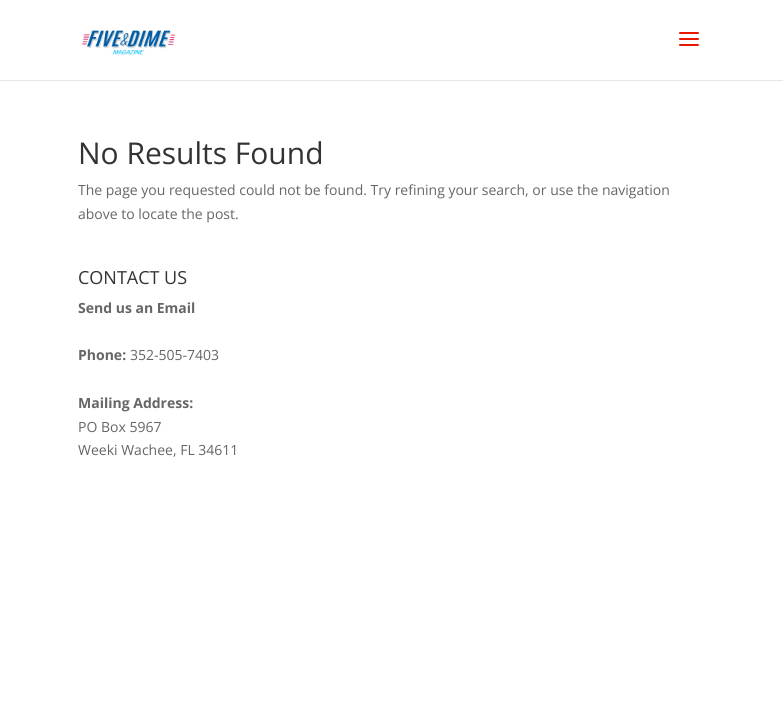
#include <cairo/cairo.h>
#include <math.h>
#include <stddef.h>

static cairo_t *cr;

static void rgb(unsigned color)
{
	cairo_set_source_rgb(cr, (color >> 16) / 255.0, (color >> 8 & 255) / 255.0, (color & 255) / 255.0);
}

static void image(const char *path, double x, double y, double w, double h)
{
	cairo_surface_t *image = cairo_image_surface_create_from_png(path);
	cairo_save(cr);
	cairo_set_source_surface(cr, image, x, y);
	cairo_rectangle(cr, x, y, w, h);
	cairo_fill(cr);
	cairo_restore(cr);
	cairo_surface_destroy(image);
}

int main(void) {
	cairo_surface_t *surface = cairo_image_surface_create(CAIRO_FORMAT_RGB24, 783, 713);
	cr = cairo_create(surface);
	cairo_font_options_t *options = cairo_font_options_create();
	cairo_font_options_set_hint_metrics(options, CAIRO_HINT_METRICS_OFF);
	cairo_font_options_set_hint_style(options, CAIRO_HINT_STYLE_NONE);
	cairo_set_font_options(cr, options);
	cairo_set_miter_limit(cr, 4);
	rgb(0xffffff);
	cairo_paint(cr);
	rgb(0xe6e6e6);
	cairo_rectangle(cr, 0, 80, 783, 1);
	cairo_fill(cr);
	image("img/1.png", 82, 30, 93, 25);
	image("img/2.png", 679, 32, 20, 14);
	cairo_select_font_face(cr, "Open Sans", CAIRO_FONT_SLANT_NORMAL, CAIRO_FONT_WEIGHT_NORMAL);
	cairo_set_font_size(cr, 30);
	rgb(0x333333);
	cairo_move_to(cr, 78, 164);
	cairo_show_text(cr, "No Results Found");
	cairo_set_font_size(cr, 14);
	rgb(0x666666);
	cairo_move_to(cr, 78, 195);
	cairo_show_text(cr, "The page you requested could not be found. Try refining your search, or use the navigation");
	cairo_move_to(cr, 78, 219);
	cairo_show_text(cr, "above to locate the post.");
	cairo_set_font_size(cr, 18);
	rgb(0x333333);
	cairo_move_to(cr, 78, 284);
	cairo_show_text(cr, "CONTACT US");
	cairo_select_font_face(cr, "Open Sans", CAIRO_FONT_SLANT_NORMAL, CAIRO_FONT_WEIGHT_BOLD);
	cairo_set_font_size(cr, 14);
	rgb(0x666666);
	cairo_move_to(cr, 78, 313);
	cairo_show_text(cr, "Send us an Email");
	cairo_move_to(cr, 78, 360);
	cairo_show_text(cr, "Phone:");
	cairo_select_font_face(cr, "Open Sans", CAIRO_FONT_SLANT_NORMAL, CAIRO_FONT_WEIGHT_NORMAL);
	cairo_move_to(cr, 130, 360);
	cairo_show_text(cr, "352-505-7403");
	cairo_select_font_face(cr, "Open Sans", CAIRO_FONT_SLANT_NORMAL, CAIRO_FONT_WEIGHT_BOLD);
	cairo_move_to(cr, 78, 408);
	cairo_show_text(cr, "Mailing Address:");
	cairo_select_font_face(cr, "Open Sans", CAIRO_FONT_SLANT_NORMAL, CAIRO_FONT_WEIGHT_NORMAL);
	cairo_move_to(cr, 78, 432);
	cairo_show_text(cr, "PO Box 5967");
	cairo_move_to(cr, 78, 455);
	cairo_show_text(cr, "Weeki Wachee, FL 34611");
	cairo_surface_write_to_png(surface, "page.png");
	cairo_font_options_destroy(options);
	cairo_destroy(cr);
	cairo_surface_destroy(surface);
	return 0;
}
